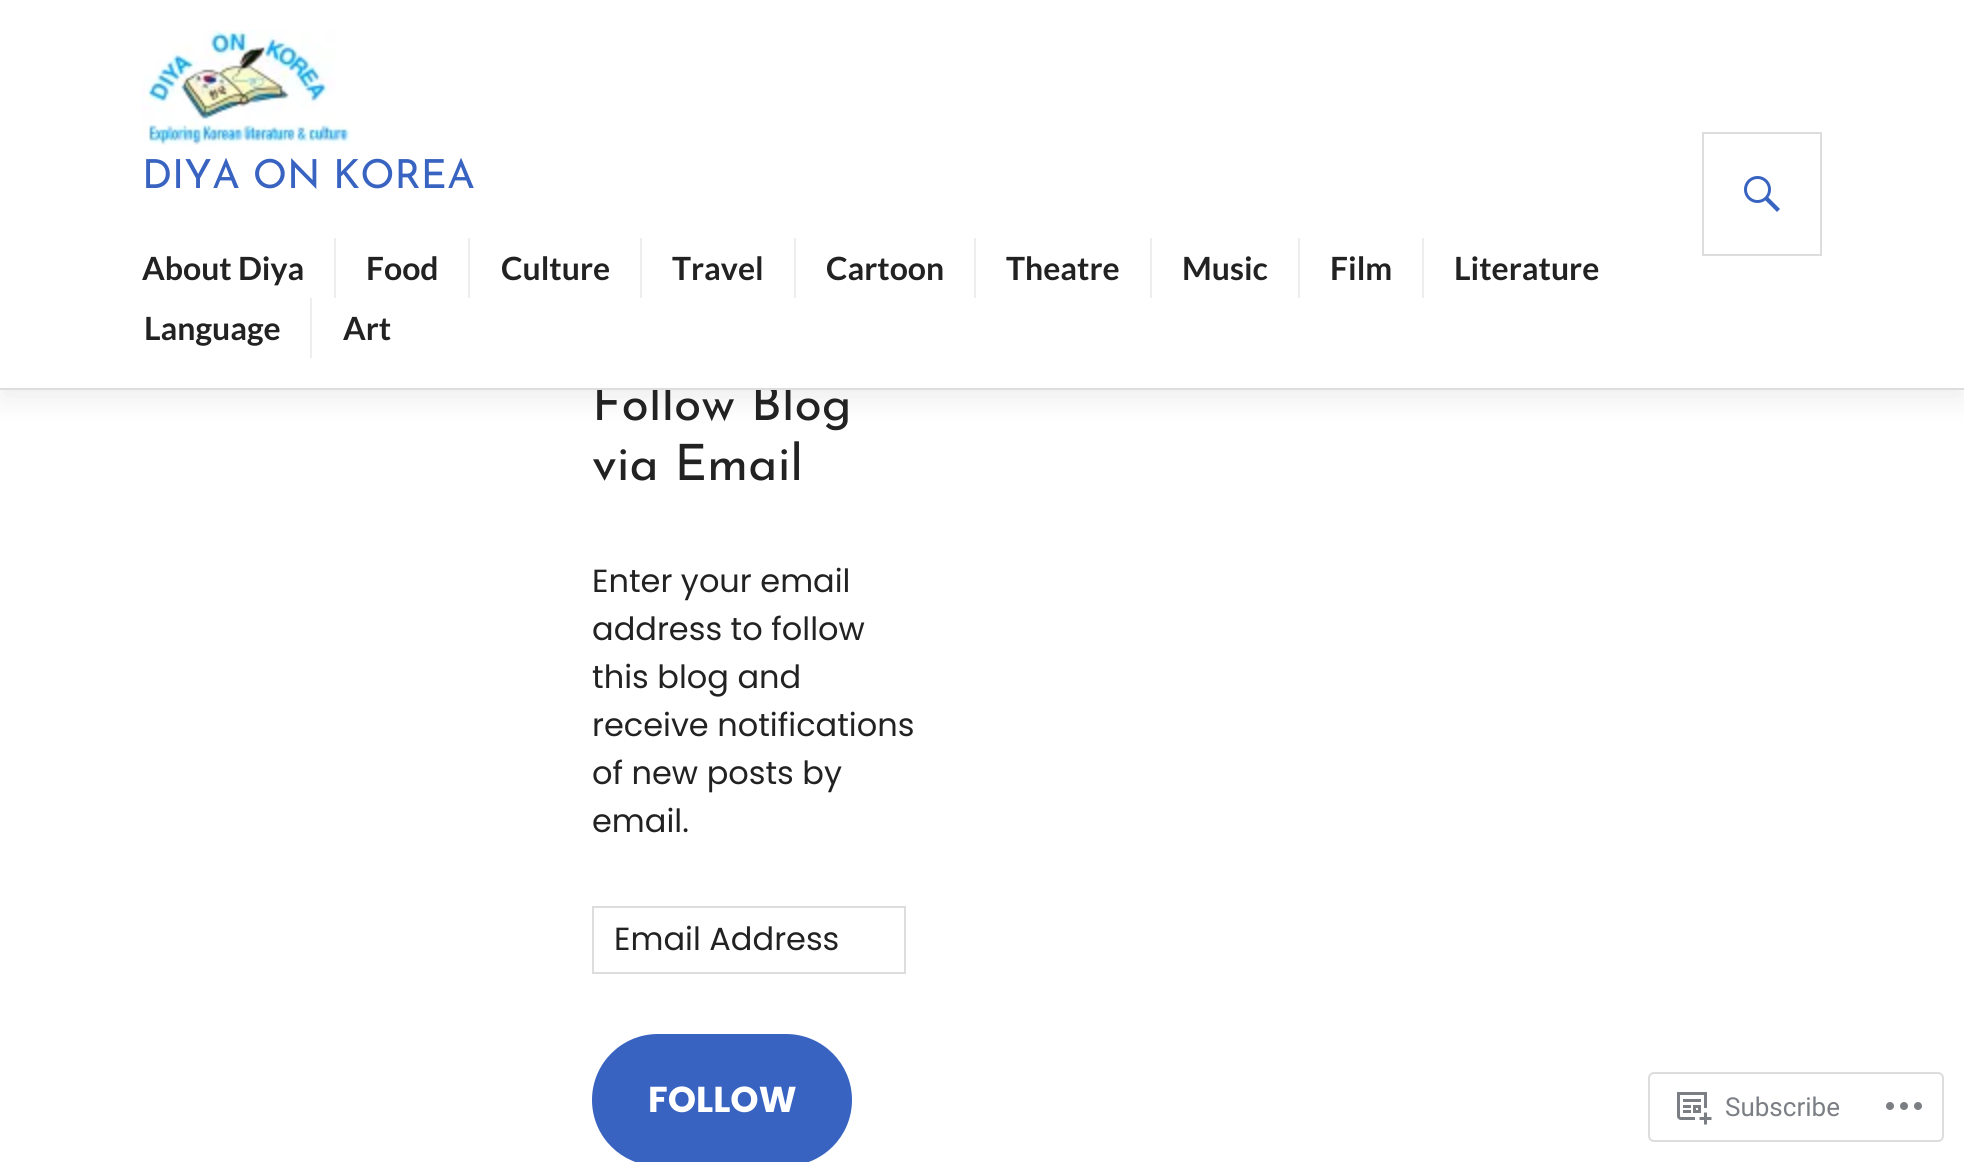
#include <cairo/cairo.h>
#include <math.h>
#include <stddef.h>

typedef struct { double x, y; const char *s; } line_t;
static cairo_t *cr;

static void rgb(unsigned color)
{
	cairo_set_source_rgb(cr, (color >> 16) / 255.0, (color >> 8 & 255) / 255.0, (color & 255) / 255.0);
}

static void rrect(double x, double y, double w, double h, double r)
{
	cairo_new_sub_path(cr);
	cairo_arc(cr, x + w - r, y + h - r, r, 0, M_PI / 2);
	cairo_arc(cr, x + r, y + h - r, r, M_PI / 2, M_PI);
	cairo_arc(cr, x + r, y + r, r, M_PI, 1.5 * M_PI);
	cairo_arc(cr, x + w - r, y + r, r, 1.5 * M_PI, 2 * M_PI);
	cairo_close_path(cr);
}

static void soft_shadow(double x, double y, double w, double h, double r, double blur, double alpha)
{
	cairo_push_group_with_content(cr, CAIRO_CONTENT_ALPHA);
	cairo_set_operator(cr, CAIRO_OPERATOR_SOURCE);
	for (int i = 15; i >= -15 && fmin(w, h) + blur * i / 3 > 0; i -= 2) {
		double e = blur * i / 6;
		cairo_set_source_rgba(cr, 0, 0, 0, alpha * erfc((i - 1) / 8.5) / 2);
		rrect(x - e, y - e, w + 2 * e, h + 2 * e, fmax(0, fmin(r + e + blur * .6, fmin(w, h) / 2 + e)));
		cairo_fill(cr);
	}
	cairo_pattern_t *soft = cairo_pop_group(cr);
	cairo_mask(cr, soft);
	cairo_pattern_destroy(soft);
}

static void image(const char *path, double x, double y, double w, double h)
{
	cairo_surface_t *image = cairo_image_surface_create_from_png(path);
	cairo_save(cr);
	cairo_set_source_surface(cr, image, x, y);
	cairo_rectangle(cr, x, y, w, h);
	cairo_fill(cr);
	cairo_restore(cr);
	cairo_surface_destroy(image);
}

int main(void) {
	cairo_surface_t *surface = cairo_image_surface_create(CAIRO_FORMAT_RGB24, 1964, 1162);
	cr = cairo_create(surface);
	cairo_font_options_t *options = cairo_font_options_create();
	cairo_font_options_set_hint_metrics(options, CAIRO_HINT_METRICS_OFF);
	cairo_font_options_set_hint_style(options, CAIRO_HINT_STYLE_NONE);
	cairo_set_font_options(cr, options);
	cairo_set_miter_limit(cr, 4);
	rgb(0xffffff);
	cairo_paint(cr);
	rgb(0x000000);
	soft_shadow(0, 10, 1964, 390, 0, 15, 0.07);
	cairo_rectangle(cr, 593, 907, 312, 66);
	rgb(0xdddddd);
	cairo_stroke(cr);
	rgb(0x3863c1);
	rrect(594, 1036, 256, 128, 64);
	cairo_fill_preserve(cr);
	cairo_set_line_width(cr, 4);
	cairo_stroke(cr);
	rrect(1649, 1073, 294, 68, 5);
	rgb(0xdddddf);
	cairo_set_line_width(cr, 2);
	cairo_stroke(cr);
	image("img/3.png", 1677, 1092, 35, 33);
	image("img/4.png", 1886, 1102, 36, 8);
	cairo_select_font_face(cr, "Josefin Sans Thin", CAIRO_FONT_SLANT_NORMAL, CAIRO_FONT_WEIGHT_NORMAL);
	cairo_set_font_size(cr, 50);
	rgb(0x222222);
	cairo_move_to(cr, 592, 420);
	cairo_show_text(cr, "Follow Blog");
	rgb(0xffffff);
	cairo_rectangle(cr, 0, 0, 1964, 388);
	cairo_fill(cr);
	cairo_rectangle(cr, 1703, 133, 118, 122);
	rgb(0xdddddd);
	cairo_stroke(cr);
	image("img/2.png", 1744, 176, 36, 36);
	cairo_select_font_face(cr, "Lato", CAIRO_FONT_SLANT_NORMAL, CAIRO_FONT_WEIGHT_BOLD);
	cairo_set_font_size(cr, 32);
	rgb(0x222222);
	cairo_move_to(cr, 343, 340);
	cairo_show_text(cr, "Art");
	rgb(0xeeeeee);
	cairo_rectangle(cr, 310, 298, 2, 60);
	cairo_fill(cr);
	rgb(0x222222);
	cairo_move_to(cr, 144, 340);
	cairo_show_text(cr, "Language");
	cairo_move_to(cr, 1454, 280);
	cairo_show_text(cr, "Literature");
	rgb(0xeeeeee);
	cairo_rectangle(cr, 1422, 238, 2, 60);
	cairo_fill(cr);
	rgb(0x222222);
	cairo_move_to(cr, 1330, 280);
	cairo_show_text(cr, "Film");
	rgb(0xeeeeee);
	cairo_rectangle(cr, 1298, 238, 2, 60);
	cairo_fill(cr);
	rgb(0x222222);
	cairo_move_to(cr, 1182, 280);
	cairo_show_text(cr, "Music");
	rgb(0xeeeeee);
	cairo_rectangle(cr, 1150, 238, 2, 60);
	cairo_fill(cr);
	rgb(0x222222);
	cairo_move_to(cr, 1006, 280);
	cairo_show_text(cr, "Theatre");
	rgb(0xeeeeee);
	cairo_rectangle(cr, 974, 238, 2, 60);
	cairo_fill(cr);
	rgb(0x222222);
	cairo_move_to(cr, 826, 280);
	cairo_show_text(cr, "Cartoon");
	rgb(0xeeeeee);
	cairo_rectangle(cr, 794, 238, 2, 60);
	cairo_fill(cr);
	rgb(0x222222);
	cairo_move_to(cr, 672, 280);
	cairo_show_text(cr, "Travel");
	rgb(0xeeeeee);
	cairo_rectangle(cr, 640, 238, 2, 60);
	cairo_fill(cr);
	rgb(0x222222);
	cairo_move_to(cr, 501, 280);
	cairo_show_text(cr, "Culture");
	rgb(0xeeeeee);
	cairo_rectangle(cr, 468, 238, 2, 60);
	cairo_fill(cr);
	rgb(0x222222);
	cairo_move_to(cr, 366, 280);
	cairo_show_text(cr, "Food");
	rgb(0xeeeeee);
	cairo_rectangle(cr, 334, 238, 2, 60);
	cairo_fill(cr);
	rgb(0x222222);
	cairo_move_to(cr, 142, 280);
	cairo_show_text(cr, "About Diya");
	cairo_select_font_face(cr, "Josefin Sans Thin", CAIRO_FONT_SLANT_NORMAL, CAIRO_FONT_WEIGHT_NORMAL);
	cairo_set_font_size(cr, 40);
	rgb(0x3863c1);
	cairo_move_to(cr, 142, 188);
	cairo_show_text(cr, "DIYA ON KOREA");
	image("img/1.png", 142, 30, 208, 115);
	rgb(0xdddddd);
	cairo_rectangle(cr, 0, 388, 1964, 2);
	cairo_fill(cr);
	cairo_set_font_size(cr, 50);
	rgb(0x222222);
	cairo_move_to(cr, 592, 480);
	cairo_show_text(cr, "via Email");
	cairo_select_font_face(cr, "Poppins", CAIRO_FONT_SLANT_NORMAL, CAIRO_FONT_WEIGHT_NORMAL);
	cairo_set_font_size(cr, 32);
	{
		static const line_t items[] = {
			{592, 592, "Enter your email"},
			{592, 640, "address to follow"},
			{592, 688, "this blog and"},
			{592, 736, "receive notifications"},
			{592, 784, "of new posts by"},
			{592, 832, "email."},
			{614, 950, "Email Address"},
		};
		for (size_t i = 0; i < sizeof items / sizeof *items; i++) {
			cairo_move_to(cr, items[i].x, items[i].y);
			cairo_show_text(cr, items[i].s);
		}
	}
	cairo_select_font_face(cr, "Poppins", CAIRO_FONT_SLANT_NORMAL, CAIRO_FONT_WEIGHT_BOLD);
	cairo_set_font_size(cr, 36);
	rgb(0xffffff);
	cairo_move_to(cr, 648, 1112);
	cairo_show_text(cr, "FOLLOW");
	cairo_select_font_face(cr, "Roboto", CAIRO_FONT_SLANT_NORMAL, CAIRO_FONT_WEIGHT_NORMAL);
	cairo_set_font_size(cr, 26);
	rgb(0x7b7f85);
	cairo_move_to(cr, 1725, 1116);
	cairo_show_text(cr, "Subscribe");
	cairo_surface_write_to_png(surface, "page.png");
	cairo_font_options_destroy(options);
	cairo_destroy(cr);
	cairo_surface_destroy(surface);
	return 0;
}
